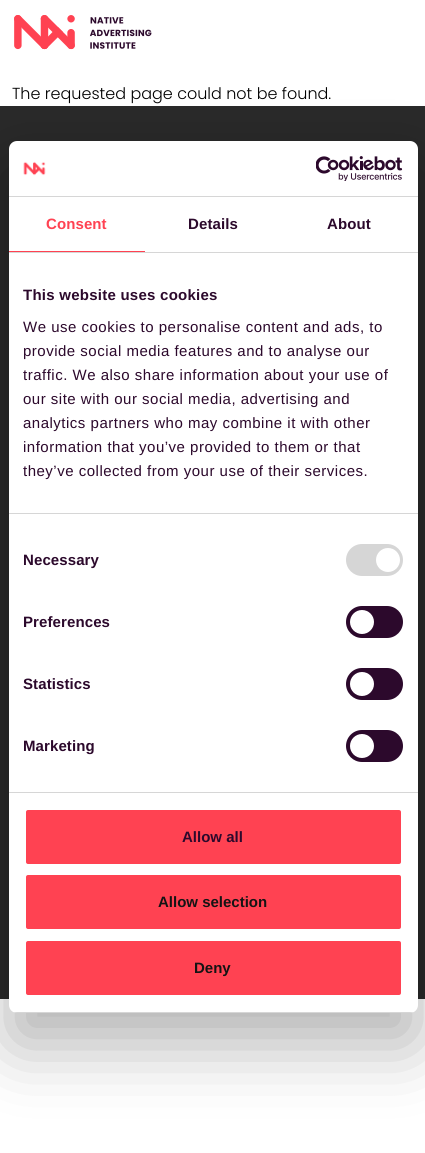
#include <cairo/cairo.h>
#include <math.h>
#include <stddef.h>

typedef struct { double x, y; const char *s; } line_t;
typedef struct { double x, y, w, h; unsigned color; } box_t;
static cairo_t *cr;

static void rgb(unsigned color)
{
	cairo_set_source_rgb(cr, (color >> 16) / 255.0, (color >> 8 & 255) / 255.0, (color & 255) / 255.0);
}

static void tracked(double x, double y, const char *s, double letter, double word)
{
	cairo_move_to(cr, x, y);
	while (*s) {
		char ch[5] = {0};
		int n = 0;
		do ch[n++] = *s++; while ((*s & 0xC0) == 0x80);
		cairo_show_text(cr, ch);
		cairo_rel_move_to(cr, letter + word * (*ch == ' '), 0);
	}
}

static void rrect(double x, double y, double w, double h, double r)
{
	cairo_new_sub_path(cr);
	cairo_arc(cr, x + w - r, y + h - r, r, 0, M_PI / 2);
	cairo_arc(cr, x + r, y + h - r, r, M_PI / 2, M_PI);
	cairo_arc(cr, x + r, y + r, r, M_PI, 1.5 * M_PI);
	cairo_arc(cr, x + w - r, y + r, r, 1.5 * M_PI, 2 * M_PI);
	cairo_close_path(cr);
}

static void soft_shadow(double x, double y, double w, double h, double r, double blur, double alpha)
{
	cairo_push_group_with_content(cr, CAIRO_CONTENT_ALPHA);
	cairo_set_operator(cr, CAIRO_OPERATOR_SOURCE);
	for (int i = 15; i >= -15 && fmin(w, h) + blur * i / 3 > 0; i -= 2) {
		double e = blur * i / 6;
		cairo_set_source_rgba(cr, 0, 0, 0, alpha * erfc((i - 1) / 8.5) / 2);
		rrect(x - e, y - e, w + 2 * e, h + 2 * e, fmax(0, fmin(r + e + blur * .6, fmin(w, h) / 2 + e)));
		cairo_fill(cr);
	}
	cairo_pattern_t *soft = cairo_pop_group(cr);
	cairo_mask(cr, soft);
	cairo_pattern_destroy(soft);
}

static void image(const char *path, double x, double y, double w, double h)
{
	cairo_surface_t *image = cairo_image_surface_create_from_png(path);
	cairo_save(cr);
	cairo_set_source_surface(cr, image, x, y);
	cairo_rectangle(cr, x, y, w, h);
	cairo_fill(cr);
	cairo_restore(cr);
	cairo_surface_destroy(image);
}

int main(void) {
	cairo_surface_t *surface = cairo_image_surface_create(CAIRO_FORMAT_RGB24, 425, 1153);
	cr = cairo_create(surface);
	cairo_font_options_t *options = cairo_font_options_create();
	cairo_font_options_set_hint_metrics(options, CAIRO_HINT_METRICS_OFF);
	cairo_font_options_set_hint_style(options, CAIRO_HINT_STYLE_NONE);
	cairo_set_font_options(cr, options);
	cairo_set_miter_limit(cr, 4);
	rgb(0xffffff);
	cairo_paint(cr);
	image("img/1.png", 14, 15, 138, 35);
	rgb(0x292929);
	cairo_rectangle(cr, 0, 106, 425, 893);
	cairo_fill(cr);
	rgb(0x000000);
	soft_shadow(9, 173, 409, 872, 8, 34, 0.3);
	rgb(0xffffff);
	rrect(9, 141, 409, 872, 8);
	cairo_fill(cr);
	rgb(0xd6d6d6);
	cairo_rectangle(cr, 9, 196, 409, 1);
	cairo_fill(cr);
	image("img/2.png", 23, 161, 23, 15);
	image("img/3.png", 316, 156, 87, 25);
	{
		static const box_t items[] = {
			{9, 252, 409, 1, 0xd6d6d6},
			{9, 251, 136, 1, 0xff4252},
			{9, 513, 409, 1, 0xd6d6d6},
			{9, 792, 409, 1, 0xd6d6d6},
		};
		for (size_t i = 0; i < sizeof items / sizeof *items; i++) {
			rgb(items[i].color);
			cairo_rectangle(cr, items[i].x, items[i].y, items[i].w, items[i].h);
			cairo_fill(cr);
		}
	}
	rrect(346, 544, 57, 32, 16);
	cairo_fill(cr);
	rgb(0xffffff);
	cairo_arc(cr, 388, 560, 12, 0, 2 * M_PI);
	cairo_fill(cr);
	rgb(0x2c092c);
	rrect(346, 606, 57, 32, 16);
	cairo_fill(cr);
	rgb(0xffffff);
	cairo_arc(cr, 362, 622, 12, 0, 2 * M_PI);
	cairo_fill(cr);
	rgb(0x2c092c);
	rrect(346, 668, 57, 32, 16);
	cairo_fill(cr);
	rgb(0xffffff);
	cairo_arc(cr, 362, 684, 12, 0, 2 * M_PI);
	cairo_fill(cr);
	rgb(0x2c092c);
	rrect(346, 730, 57, 32, 16);
	cairo_fill(cr);
	rgb(0xffffff);
	cairo_arc(cr, 362, 746, 12, 0, 2 * M_PI);
	cairo_fill(cr);
	cairo_save(cr);
	rrect(9, 141, 409, 872, 8);
	cairo_clip(cr);
	rgb(0xd6d6d6);
	cairo_rectangle(cr, 9, 1012, 409, 1);
	cairo_fill(cr);
	cairo_restore(cr);
	rgb(0xff4252);
	rrect(25, 809, 377, 56, 3);
	cairo_fill_preserve(cr);
	rgb(0xffffff);
	cairo_stroke(cr);
	rgb(0xff4252);
	rrect(25, 874, 377, 56, 3);
	cairo_fill_preserve(cr);
	rgb(0xffffff);
	cairo_stroke(cr);
	rgb(0xff4252);
	rrect(25, 940, 377, 56, 3);
	cairo_fill_preserve(cr);
	rgb(0xffffff);
	cairo_stroke(cr);
	cairo_select_font_face(cr, "Poppins Light", CAIRO_FONT_SLANT_NORMAL, CAIRO_FONT_WEIGHT_NORMAL);
	cairo_set_font_size(cr, 16);
	rgb(0x000000);
	cairo_move_to(cr, 12, 99);
	cairo_show_text(cr, "The requested page could not be found.");
	cairo_select_font_face(cr, "Liberation Sans", CAIRO_FONT_SLANT_NORMAL, CAIRO_FONT_WEIGHT_BOLD);
	cairo_set_font_size(cr, 15);
	rgb(0xff4252);
	tracked(46, 229, "Consent", 0.1, 0);
	rgb(0x2c092c);
	tracked(188, 229, "Details", 0.1, 0);
	tracked(327, 229, "About", 0.1, 0);
	tracked(23, 300, "This website uses cookies", 0.25, 0);
	cairo_select_font_face(cr, "Liberation Sans", CAIRO_FONT_SLANT_NORMAL, CAIRO_FONT_WEIGHT_NORMAL);
	{
		static const line_t items[] = {
			{23, 332, "We use cookies to personalise content and ads, to"},
			{23, 356, "provide social media features and to analyse our"},
			{23, 380, "traffic. We also share information about your use of"},
			{23, 404, "our site with our social media, advertising and"},
			{23, 428, "analytics partners who may combine it with other"},
			{23, 452, "information that you’ve provided to them or that"},
			{23, 476, "they’ve collected from your use of their services."},
		};
		for (size_t i = 0; i < sizeof items / sizeof *items; i++) {
			tracked(items[i].x, items[i].y, items[i].s, 0.5, 0);
		}
	}
	cairo_select_font_face(cr, "Liberation Sans", CAIRO_FONT_SLANT_NORMAL, CAIRO_FONT_WEIGHT_BOLD);
	{
		static const line_t items[] = {
			{23, 565, "Necessary"},
			{23, 627, "Preferences"},
			{23, 689, "Statistics"},
			{23, 751, "Marketing"},
		};
		for (size_t i = 0; i < sizeof items / sizeof *items; i++) {
			tracked(items[i].x, items[i].y, items[i].s, 0.1, 0);
		}
	}
	cairo_move_to(cr, 182, 842);
	cairo_show_text(cr, "Allow all");
	rgb(0x141414);
	cairo_move_to(cr, 158, 907);
	cairo_show_text(cr, "Allow selection");
	cairo_move_to(cr, 194, 973);
	cairo_show_text(cr, "Deny");
	cairo_surface_write_to_png(surface, "page.png");
	cairo_font_options_destroy(options);
	cairo_destroy(cr);
	cairo_surface_destroy(surface);
	return 0;
}
